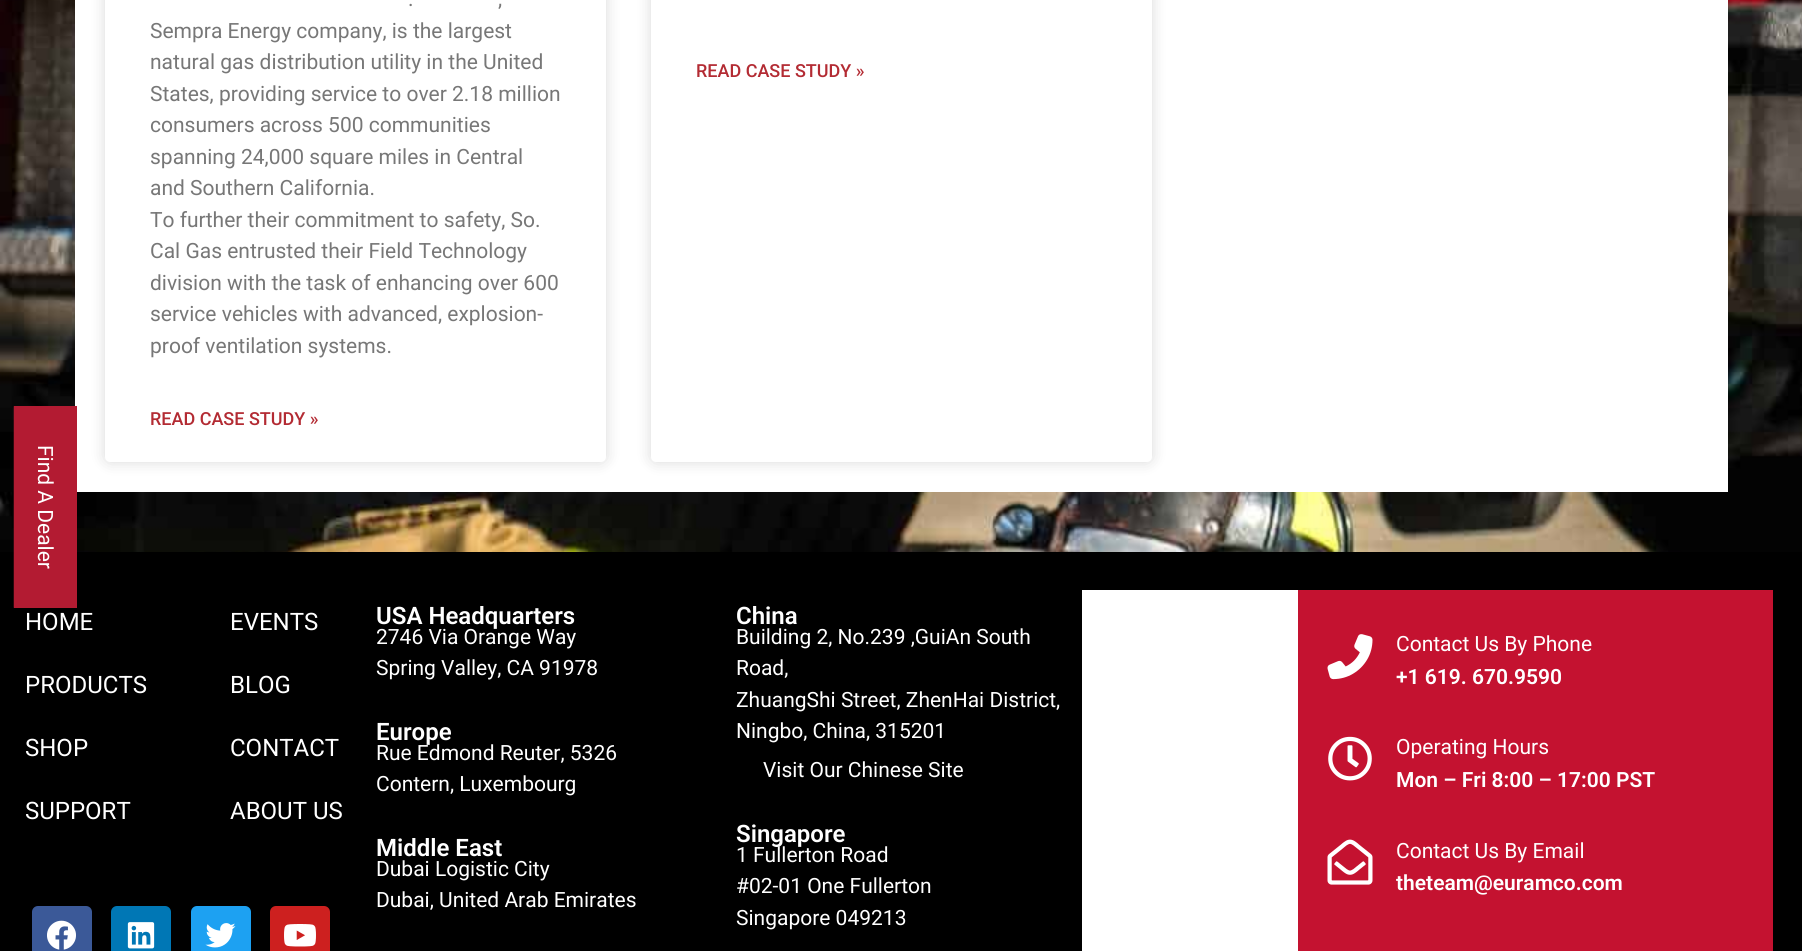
#include <cairo/cairo.h>
#include <math.h>
#include <stddef.h>

typedef struct { double x, y; const char *s; } line_t;
static cairo_t *cr;

static void rgb(unsigned color)
{
	cairo_set_source_rgb(cr, (color >> 16) / 255.0, (color >> 8 & 255) / 255.0, (color & 255) / 255.0);
}

static void rrect(double x, double y, double w, double h, double r)
{
	cairo_new_sub_path(cr);
	cairo_arc(cr, x + w - r, y + h - r, r, 0, M_PI / 2);
	cairo_arc(cr, x + r, y + h - r, r, M_PI / 2, M_PI);
	cairo_arc(cr, x + r, y + r, r, M_PI, 1.5 * M_PI);
	cairo_arc(cr, x + w - r, y + r, r, 1.5 * M_PI, 2 * M_PI);
	cairo_close_path(cr);
}

static void soft_shadow(double x, double y, double w, double h, double r, double blur, double alpha)
{
	cairo_push_group_with_content(cr, CAIRO_CONTENT_ALPHA);
	cairo_set_operator(cr, CAIRO_OPERATOR_SOURCE);
	for (int i = 15; i >= -15 && fmin(w, h) + blur * i / 3 > 0; i -= 2) {
		double e = blur * i / 6;
		cairo_set_source_rgba(cr, 0, 0, 0, alpha * erfc((i - 1) / 8.5) / 2);
		rrect(x - e, y - e, w + 2 * e, h + 2 * e, fmax(0, fmin(r + e + blur * .6, fmin(w, h) / 2 + e)));
		cairo_fill(cr);
	}
	cairo_pattern_t *soft = cairo_pop_group(cr);
	cairo_mask(cr, soft);
	cairo_pattern_destroy(soft);
}

static void image(const char *path, double x, double y, double w, double h)
{
	cairo_surface_t *image = cairo_image_surface_create_from_png(path);
	cairo_save(cr);
	cairo_set_source_surface(cr, image, x, y);
	cairo_rectangle(cr, x, y, w, h);
	cairo_fill(cr);
	cairo_restore(cr);
	cairo_surface_destroy(image);
}

int main(void) {
	cairo_surface_t *surface = cairo_image_surface_create(CAIRO_FORMAT_RGB24, 1802, 951);
	cr = cairo_create(surface);
	cairo_font_options_t *options = cairo_font_options_create();
	cairo_font_options_set_hint_metrics(options, CAIRO_HINT_METRICS_OFF);
	cairo_font_options_set_hint_style(options, CAIRO_HINT_STYLE_NONE);
	cairo_set_font_options(cr, options);
	cairo_set_miter_limit(cr, 4);
	rgb(0xffffff);
	cairo_paint(cr);
	image("img/1.png", 0, 0, 1802, 552);
	rgb(0xffffff);
	cairo_rectangle(cr, 75, 0, 1653, 492);
	cairo_fill(cr);
	rgb(0x000000);
	soft_shadow(105, -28, 501, 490, 5, 7.5, 0.15);
	rgb(0xffffff);
	rrect(105, -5, 501, 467, 5);
	cairo_fill(cr);
	rgb(0x000000);
	soft_shadow(651, -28, 501, 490, 5, 7.5, 0.15);
	rgb(0xffffff);
	rrect(651, -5, 501, 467, 5);
	cairo_fill(cr);
	rgb(0x000000);
	cairo_rectangle(cr, 0, 552, 1802, 399);
	cairo_fill(cr);
	rgb(0xb31b32);
	cairo_rectangle(cr, 14, 406, 63, 202);
	cairo_fill(cr);
	cairo_new_path(cr);
	cairo_move_to(cr, 76, 407);
	cairo_line_to(cr, 76, 607);
	cairo_line_to(cr, 14.5, 607);
	cairo_line_to(cr, 14.5, 407);
	cairo_close_path(cr);
	cairo_set_line_width(cr, 1.5);
	cairo_stroke(cr);
	rgb(0x3b5998);
	rrect(32, 906, 60, 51, 6);
	cairo_fill(cr);
	image("img/2.png", 47, 920, 29, 30);
	rgb(0x0077b5);
	rrect(111, 906, 60, 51, 6);
	cairo_fill(cr);
	image("img/3.png", 127, 922, 28, 27);
	rgb(0x1da1f2);
	rrect(191, 906, 60, 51, 6);
	cairo_fill(cr);
	image("img/4.png", 205, 923, 31, 25);
	rgb(0xcd201f);
	rrect(270, 906, 60, 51, 6);
	cairo_fill(cr);
	image("img/5.png", 284, 924, 32, 23);
	rgb(0xffffff);
	cairo_rectangle(cr, 1082, 590, 216, 361);
	cairo_fill(cr);
	rgb(0xc41230);
	cairo_rectangle(cr, 1298, 590, 475, 361);
	cairo_fill(cr);
	image("img/6.png", 1327, 634, 46, 46);
	image("img/7.png", 1328, 736, 44, 45);
	image("img/8.png", 1327, 839, 46, 46);
	cairo_select_font_face(cr, "Roboto", CAIRO_FONT_SLANT_NORMAL, CAIRO_FONT_WEIGHT_NORMAL);
	cairo_set_font_size(cr, 21);
	rgb(0x777777);
	{
		static const line_t items[] = {
			{408, 6, "."},
			{498, 6, ","},
			{150, 38, "Sempra Energy company, is the largest"},
			{150, 69, "natural gas distribution utility in the United"},
			{150, 101, "States, providing service to over 2.18 million"},
			{150, 132, "consumers across 500 communities"},
			{150, 164, "spanning 24,000 square miles in Central"},
			{150, 195, "and Southern California."},
			{150, 227, "To further their commitment to safety, So."},
			{150, 258, "Cal Gas entrusted their Field Technology"},
			{150, 290, "division with the task of enhancing over 600"},
			{150, 321, "service vehicles with advanced, explosion-"},
			{150, 353, "proof ventilation systems."},
		};
		for (size_t i = 0; i < sizeof items / sizeof *items; i++) {
			cairo_move_to(cr, items[i].x, items[i].y);
			cairo_show_text(cr, items[i].s);
		}
	}
	cairo_select_font_face(cr, "Roboto Medium", CAIRO_FONT_SLANT_NORMAL, CAIRO_FONT_WEIGHT_NORMAL);
	cairo_set_font_size(cr, 18);
	rgb(0xb32b33);
	cairo_move_to(cr, 150, 425);
	cairo_show_text(cr, "READ CASE STUDY »");
	cairo_move_to(cr, 696, 77);
	cairo_show_text(cr, "READ CASE STUDY »");
	cairo_select_font_face(cr, "Roboto", CAIRO_FONT_SLANT_NORMAL, CAIRO_FONT_WEIGHT_NORMAL);
	cairo_set_font_size(cr, 21);
	rgb(0xffffff);
	cairo_save(cr);
	cairo_translate(cr, 38, 445);
	cairo_rotate(cr, 90 * M_PI / 180);
	cairo_move_to(cr, 0, 0);
	cairo_show_text(cr, "Find A Dealer");
	cairo_restore(cr);
	cairo_set_font_size(cr, 24);
	{
		static const line_t items[] = {
			{25, 630, "HOME"},
			{25, 693, "PRODUCTS"},
			{25, 756, "SHOP"},
			{25, 819, "SUPPORT"},
			{230, 630, "EVENTS"},
			{230, 693, "BLOG"},
			{230, 756, "CONTACT"},
			{230, 819, "ABOUT US"},
		};
		for (size_t i = 0; i < sizeof items / sizeof *items; i++) {
			cairo_move_to(cr, items[i].x, items[i].y);
			cairo_show_text(cr, items[i].s);
		}
	}
	cairo_select_font_face(cr, "Roboto SemiBold", CAIRO_FONT_SLANT_NORMAL, CAIRO_FONT_WEIGHT_NORMAL);
	cairo_move_to(cr, 376, 624);
	cairo_show_text(cr, "USA Headquarters");
	cairo_select_font_face(cr, "Roboto", CAIRO_FONT_SLANT_NORMAL, CAIRO_FONT_WEIGHT_NORMAL);
	cairo_set_font_size(cr, 21);
	cairo_move_to(cr, 376, 644);
	cairo_show_text(cr, "2746 Via Orange Way");
	cairo_move_to(cr, 376, 675);
	cairo_show_text(cr, "Spring Valley, CA 91978");
	cairo_select_font_face(cr, "Roboto SemiBold", CAIRO_FONT_SLANT_NORMAL, CAIRO_FONT_WEIGHT_NORMAL);
	cairo_set_font_size(cr, 24);
	cairo_move_to(cr, 376, 740);
	cairo_show_text(cr, "Europe");
	cairo_select_font_face(cr, "Roboto", CAIRO_FONT_SLANT_NORMAL, CAIRO_FONT_WEIGHT_NORMAL);
	cairo_set_font_size(cr, 21);
	cairo_move_to(cr, 376, 760);
	cairo_show_text(cr, "Rue Edmond Reuter, 5326");
	cairo_move_to(cr, 376, 791);
	cairo_show_text(cr, "Contern, Luxembourg");
	cairo_select_font_face(cr, "Roboto SemiBold", CAIRO_FONT_SLANT_NORMAL, CAIRO_FONT_WEIGHT_NORMAL);
	cairo_set_font_size(cr, 24);
	cairo_move_to(cr, 376, 856);
	cairo_show_text(cr, "Middle East");
	cairo_select_font_face(cr, "Roboto", CAIRO_FONT_SLANT_NORMAL, CAIRO_FONT_WEIGHT_NORMAL);
	cairo_set_font_size(cr, 21);
	cairo_move_to(cr, 376, 876);
	cairo_show_text(cr, "Dubai Logistic City");
	cairo_move_to(cr, 376, 907);
	cairo_show_text(cr, "Dubai, United Arab Emirates");
	cairo_select_font_face(cr, "Roboto SemiBold", CAIRO_FONT_SLANT_NORMAL, CAIRO_FONT_WEIGHT_NORMAL);
	cairo_set_font_size(cr, 24);
	cairo_move_to(cr, 736, 624);
	cairo_show_text(cr, "China");
	cairo_select_font_face(cr, "Roboto", CAIRO_FONT_SLANT_NORMAL, CAIRO_FONT_WEIGHT_NORMAL);
	cairo_set_font_size(cr, 21);
	{
		static const line_t items[] = {
			{736, 644, "Building 2, No.239 ,GuiAn South"},
			{736, 675, "Road,"},
			{736, 707, "ZhuangShi Street, ZhenHai District,"},
			{736, 738, "Ningbo, China, 315201"},
			{763, 777, "Visit Our Chinese Site"},
		};
		for (size_t i = 0; i < sizeof items / sizeof *items; i++) {
			cairo_move_to(cr, items[i].x, items[i].y);
			cairo_show_text(cr, items[i].s);
		}
	}
	cairo_select_font_face(cr, "Roboto SemiBold", CAIRO_FONT_SLANT_NORMAL, CAIRO_FONT_WEIGHT_NORMAL);
	cairo_set_font_size(cr, 24);
	cairo_move_to(cr, 736, 842);
	cairo_show_text(cr, "Singapore");
	cairo_select_font_face(cr, "Roboto", CAIRO_FONT_SLANT_NORMAL, CAIRO_FONT_WEIGHT_NORMAL);
	cairo_set_font_size(cr, 21);
	{
		static const line_t items[] = {
			{736, 862, "1 Fullerton Road"},
			{736, 893, "#02-01 One Fullerton"},
			{736, 925, "Singapore 049213"},
			{1396, 651, "Contact Us By Phone"},
		};
		for (size_t i = 0; i < sizeof items / sizeof *items; i++) {
			cairo_move_to(cr, items[i].x, items[i].y);
			cairo_show_text(cr, items[i].s);
		}
	}
	cairo_select_font_face(cr, "Roboto SemiBold", CAIRO_FONT_SLANT_NORMAL, CAIRO_FONT_WEIGHT_NORMAL);
	cairo_move_to(cr, 1396, 684);
	cairo_show_text(cr, "+1 619. 670.9590");
	cairo_select_font_face(cr, "Roboto", CAIRO_FONT_SLANT_NORMAL, CAIRO_FONT_WEIGHT_NORMAL);
	cairo_move_to(cr, 1396, 754);
	cairo_show_text(cr, "Operating Hours");
	cairo_select_font_face(cr, "Roboto SemiBold", CAIRO_FONT_SLANT_NORMAL, CAIRO_FONT_WEIGHT_NORMAL);
	cairo_move_to(cr, 1396, 787);
	cairo_show_text(cr, "Mon – Fri 8:00 – 17:00 PST");
	cairo_select_font_face(cr, "Roboto", CAIRO_FONT_SLANT_NORMAL, CAIRO_FONT_WEIGHT_NORMAL);
	cairo_move_to(cr, 1396, 858);
	cairo_show_text(cr, "Contact Us By Email");
	cairo_select_font_face(cr, "Roboto SemiBold", CAIRO_FONT_SLANT_NORMAL, CAIRO_FONT_WEIGHT_NORMAL);
	cairo_move_to(cr, 1396, 890);
	cairo_show_text(cr, "theteam@euramco.com");
	cairo_surface_write_to_png(surface, "page.png");
	cairo_font_options_destroy(options);
	cairo_destroy(cr);
	cairo_surface_destroy(surface);
	return 0;
}
